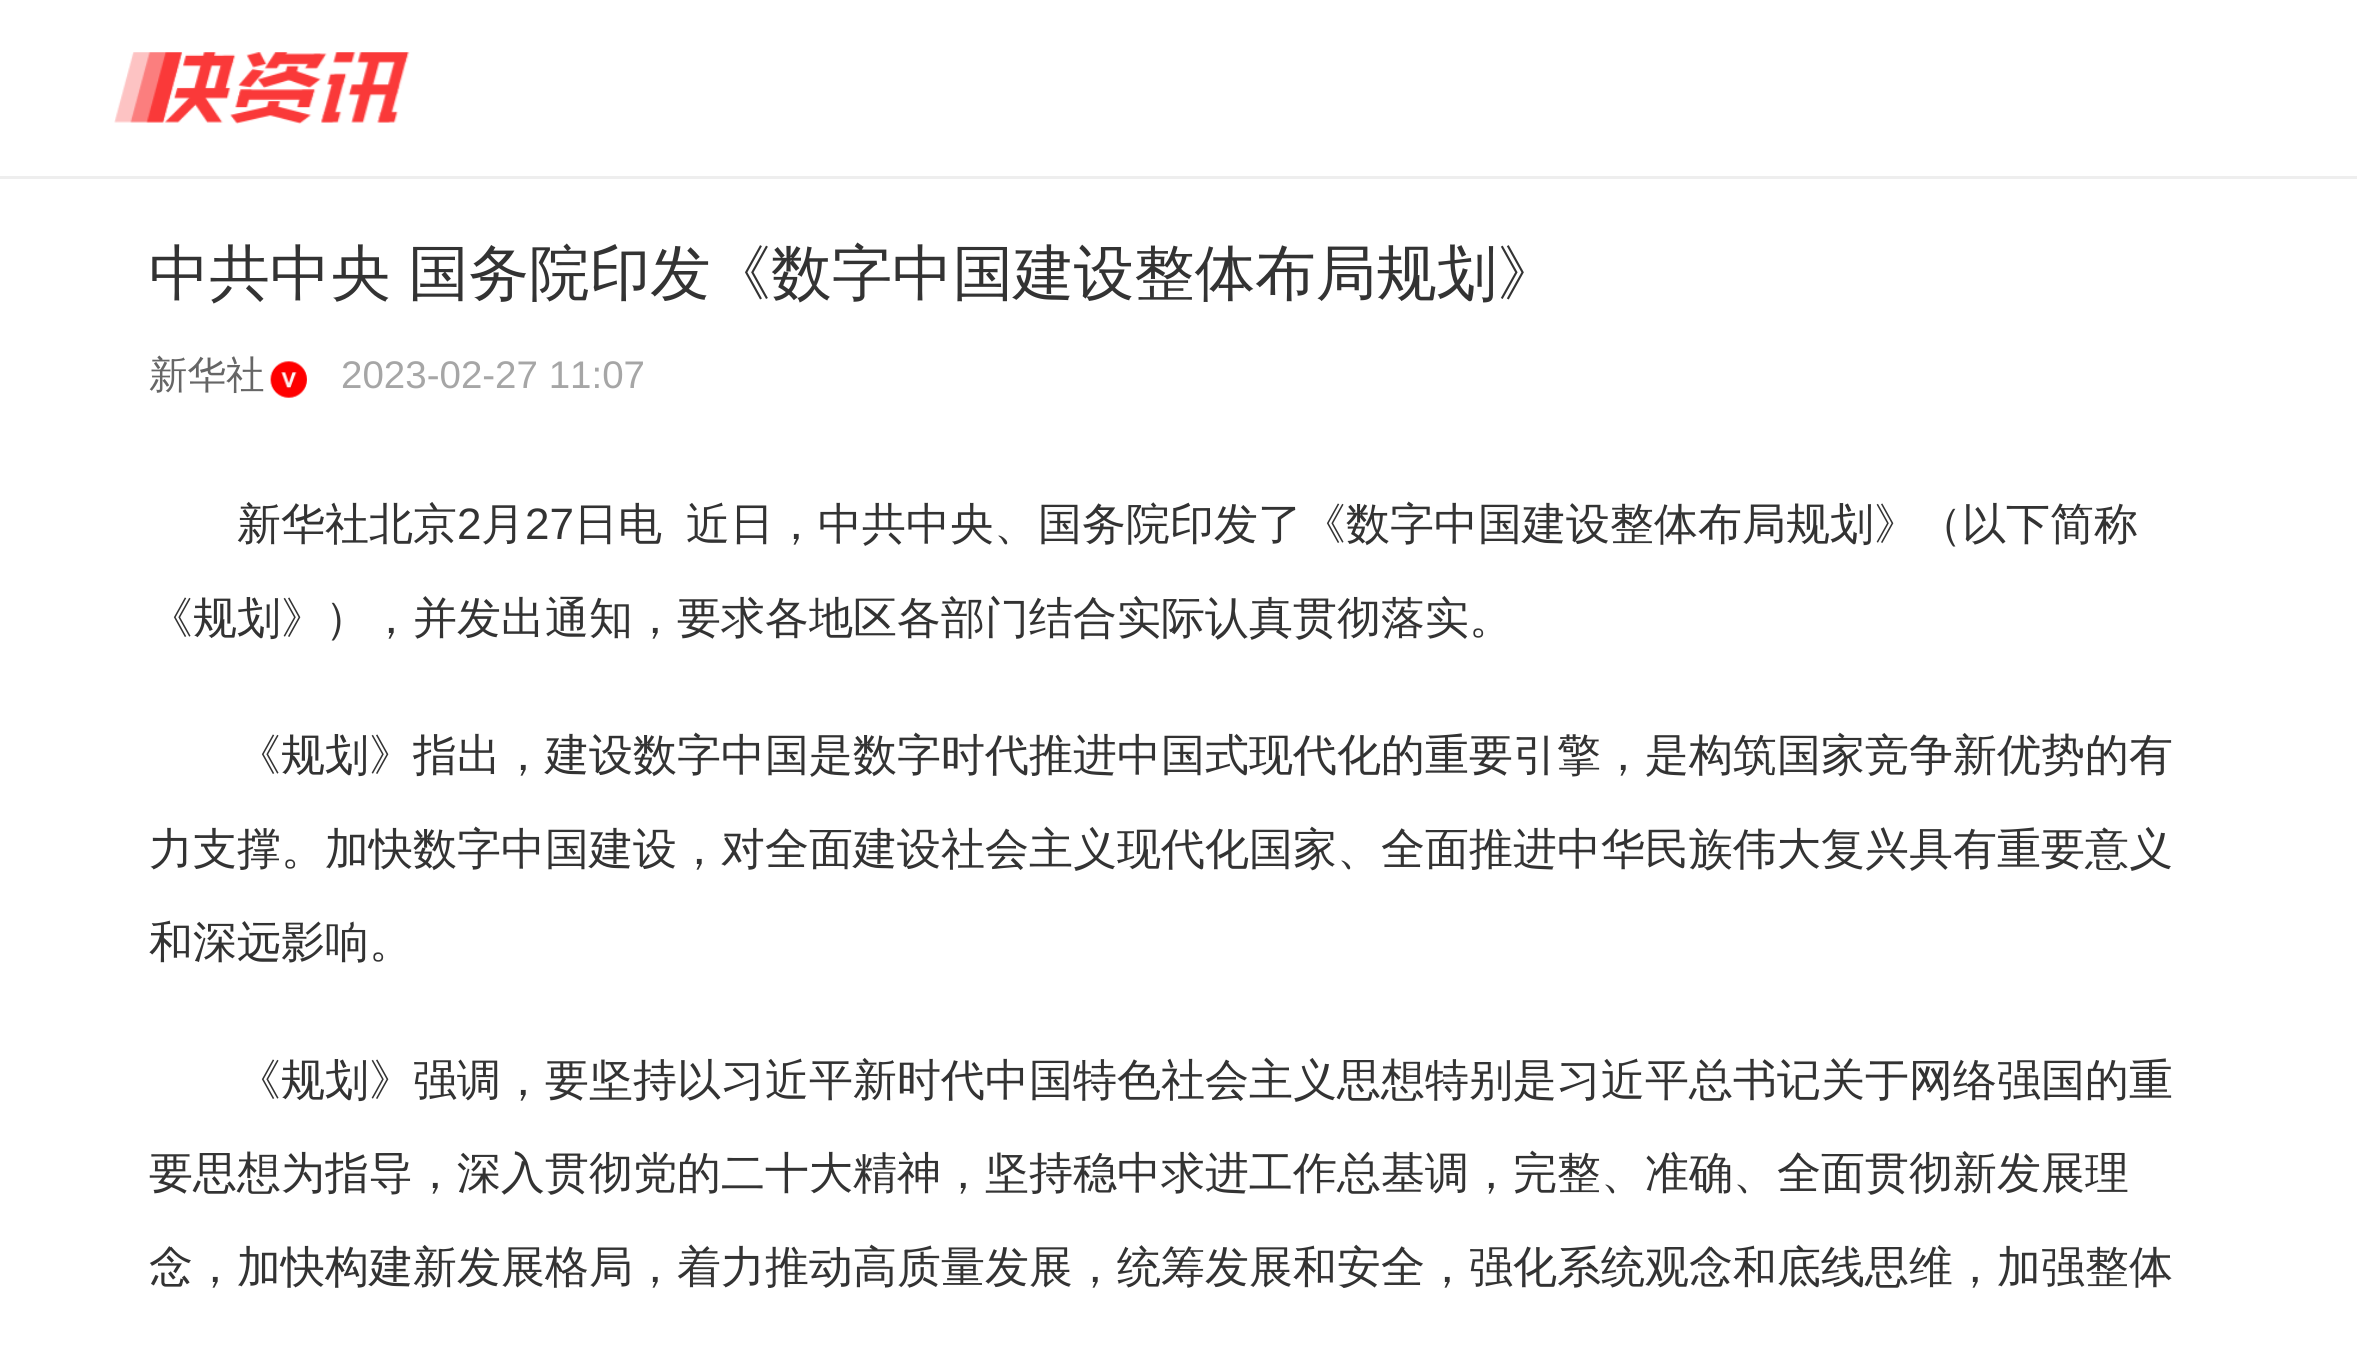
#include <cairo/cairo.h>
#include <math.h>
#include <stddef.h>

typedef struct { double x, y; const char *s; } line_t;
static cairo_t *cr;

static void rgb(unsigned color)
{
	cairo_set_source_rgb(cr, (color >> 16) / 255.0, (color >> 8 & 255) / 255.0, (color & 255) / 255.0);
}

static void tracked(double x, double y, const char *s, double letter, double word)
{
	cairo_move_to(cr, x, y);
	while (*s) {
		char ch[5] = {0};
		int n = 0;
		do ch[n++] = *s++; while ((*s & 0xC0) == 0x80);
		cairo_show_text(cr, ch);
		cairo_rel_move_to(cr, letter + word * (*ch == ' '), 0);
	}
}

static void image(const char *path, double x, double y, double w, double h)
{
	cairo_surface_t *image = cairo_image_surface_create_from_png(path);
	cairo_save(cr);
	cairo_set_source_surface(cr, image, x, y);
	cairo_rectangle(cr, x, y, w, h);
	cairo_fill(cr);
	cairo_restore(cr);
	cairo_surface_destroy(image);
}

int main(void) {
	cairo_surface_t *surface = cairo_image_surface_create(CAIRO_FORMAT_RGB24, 2357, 1359);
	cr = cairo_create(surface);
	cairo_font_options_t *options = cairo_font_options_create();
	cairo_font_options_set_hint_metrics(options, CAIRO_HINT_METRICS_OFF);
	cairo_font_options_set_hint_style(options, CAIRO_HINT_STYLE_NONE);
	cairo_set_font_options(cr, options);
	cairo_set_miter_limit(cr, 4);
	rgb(0xffffff);
	cairo_paint(cr);
	rgb(0xeeeeee);
	cairo_rectangle(cr, 0, 176, 2357, 3);
	cairo_fill(cr);
	image("img/1.png", 114, 52, 296, 72);
	image("img/2.png", 270, 361, 37, 37);
	cairo_select_font_face(cr, "WenQuanYi Zen Hei Medium", CAIRO_FONT_SLANT_NORMAL, CAIRO_FONT_WEIGHT_NORMAL);
	cairo_set_font_size(cr, 60.5);
	rgb(0x333333);
	tracked(149, 294, "中共中央 国务院印发《数字中国建设整体布局规划》", 0, -1);
	cairo_set_font_size(cr, 38.5);
	rgb(0x666666);
	cairo_move_to(cr, 149, 388);
	cairo_show_text(cr, "新华社");
	cairo_select_font_face(cr, "Liberation Sans", CAIRO_FONT_SLANT_NORMAL, CAIRO_FONT_WEIGHT_NORMAL);
	rgb(0xa6a6a6);
	cairo_move_to(cr, 341, 388);
	cairo_show_text(cr, "2023-02-27 11:07");
	cairo_select_font_face(cr, "WenQuanYi Zen Hei Medium", CAIRO_FONT_SLANT_NORMAL, CAIRO_FONT_WEIGHT_NORMAL);
	cairo_set_font_size(cr, 44);
	rgb(0x333333);
	cairo_move_to(cr, 237, 539);
	cairo_show_text(cr, "新华社北京");
	cairo_select_font_face(cr, "Liberation Sans", CAIRO_FONT_SLANT_NORMAL, CAIRO_FONT_WEIGHT_NORMAL);
	cairo_move_to(cr, 457, 539);
	cairo_show_text(cr, "2");
	cairo_select_font_face(cr, "WenQuanYi Zen Hei Medium", CAIRO_FONT_SLANT_NORMAL, CAIRO_FONT_WEIGHT_NORMAL);
	cairo_move_to(cr, 481, 539);
	cairo_show_text(cr, "月");
	cairo_select_font_face(cr, "Liberation Sans", CAIRO_FONT_SLANT_NORMAL, CAIRO_FONT_WEIGHT_NORMAL);
	cairo_move_to(cr, 525, 539);
	cairo_show_text(cr, "27");
	cairo_select_font_face(cr, "WenQuanYi Zen Hei Medium", CAIRO_FONT_SLANT_NORMAL, CAIRO_FONT_WEIGHT_NORMAL);
	{
		static const line_t items[] = {
			{574, 539, "日电"},
			{686, 539, "近日，中共中央、国务院印发了《数字中国建设整体布局规划》（以下简称"},
			{149, 633, "《规划》），并发出通知，要求各地区各部门结合实际认真贯彻落实。"},
			{237, 770, "《规划》指出，建设数字中国是数字时代推进中国式现代化的重要引擎，是构筑国家竞争新优势的有"},
			{149, 864, "力支撑。加快数字中国建设，对全面建设社会主义现代化国家、全面推进中华民族伟大复兴具有重要意义"},
			{149, 957, "和深远影响。"},
			{237, 1095, "《规划》强调，要坚持以习近平新时代中国特色社会主义思想特别是习近平总书记关于网络强国的重"},
			{149, 1188, "要思想为指导，深入贯彻党的二十大精神，坚持稳中求进工作总基调，完整、准确、全面贯彻新发展理"},
			{149, 1282, "念，加快构建新发展格局，着力推动高质量发展，统筹发展和安全，强化系统观念和底线思维，加强整体"},
		};
		for (size_t i = 0; i < sizeof items / sizeof *items; i++) {
			cairo_move_to(cr, items[i].x, items[i].y);
			cairo_show_text(cr, items[i].s);
		}
	}
	cairo_surface_write_to_png(surface, "page.png");
	cairo_font_options_destroy(options);
	cairo_destroy(cr);
	cairo_surface_destroy(surface);
	return 0;
}
